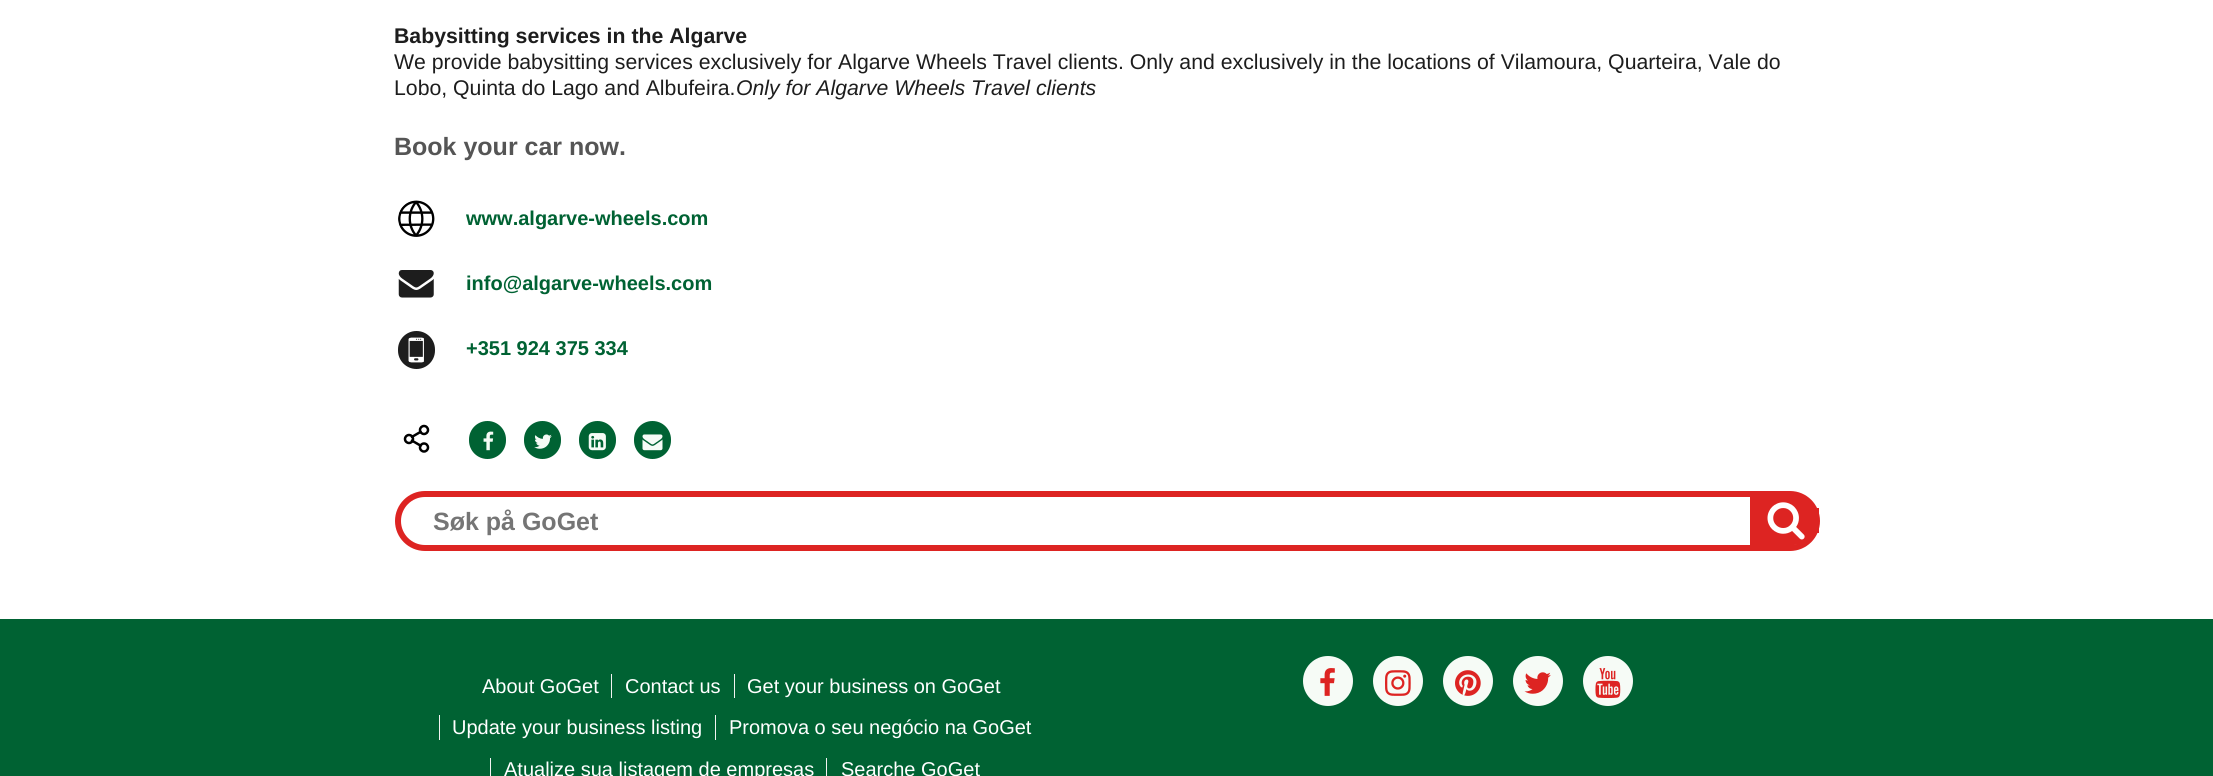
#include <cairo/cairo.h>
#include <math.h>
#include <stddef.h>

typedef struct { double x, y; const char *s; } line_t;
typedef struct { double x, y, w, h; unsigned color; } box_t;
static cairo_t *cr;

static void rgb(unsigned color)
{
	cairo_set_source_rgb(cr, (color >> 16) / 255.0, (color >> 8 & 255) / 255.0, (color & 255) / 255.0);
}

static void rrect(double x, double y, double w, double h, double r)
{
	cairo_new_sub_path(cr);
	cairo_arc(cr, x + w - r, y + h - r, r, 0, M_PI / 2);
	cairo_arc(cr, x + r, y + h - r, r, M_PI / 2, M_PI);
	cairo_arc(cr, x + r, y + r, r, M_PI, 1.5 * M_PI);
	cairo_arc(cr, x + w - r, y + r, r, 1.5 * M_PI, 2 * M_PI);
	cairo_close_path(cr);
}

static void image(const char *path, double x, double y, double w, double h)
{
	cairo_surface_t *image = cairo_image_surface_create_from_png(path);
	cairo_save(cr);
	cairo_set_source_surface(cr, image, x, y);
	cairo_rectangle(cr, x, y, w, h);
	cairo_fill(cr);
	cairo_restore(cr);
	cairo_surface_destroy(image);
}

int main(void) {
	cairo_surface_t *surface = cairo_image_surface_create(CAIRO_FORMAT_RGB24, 2213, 776);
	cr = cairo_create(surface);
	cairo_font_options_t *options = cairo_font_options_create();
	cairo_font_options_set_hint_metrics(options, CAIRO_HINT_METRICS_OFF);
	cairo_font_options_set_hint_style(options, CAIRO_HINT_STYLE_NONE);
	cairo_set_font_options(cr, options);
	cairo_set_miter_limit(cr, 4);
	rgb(0xffffff);
	cairo_paint(cr);
	image("img/1.png", 398, 200, 37, 37);
	image("img/2.png", 398, 270, 36, 28);
	rgb(0x1d1d1d);
	rrect(398, 331, 37, 38, 18.5);
	cairo_fill(cr);
	image("img/3.png", 408, 337, 16, 26);
	image("img/4.png", 403, 424, 27, 29);
	rgb(0x006233);
	rrect(470.5, 422.5, 34, 35, 17);
	cairo_fill_preserve(cr);
	cairo_set_line_width(cr, 3);
	cairo_stroke(cr);
	image("img/5.png", 483, 431, 11, 20);
	rrect(525.5, 422.5, 34, 35, 17);
	cairo_fill_preserve(cr);
	cairo_stroke(cr);
	image("img/6.png", 534, 434, 18, 15);
	rrect(580.5, 422.5, 34, 35, 17);
	cairo_fill_preserve(cr);
	cairo_stroke(cr);
	image("img/7.png", 588, 433, 18, 18);
	rrect(635.5, 422.5, 34, 35, 17);
	cairo_fill_preserve(cr);
	cairo_stroke(cr);
	image("img/8.png", 642, 434, 21, 17);
	rrect(398, 494, 1419, 54, 27);
	rgb(0xdd2422);
	cairo_set_line_width(cr, 6);
	cairo_stroke(cr);
	cairo_new_path(cr);
	cairo_move_to(cr, 1750, 495);
	cairo_line_to(cr, 1794, 495);
	cairo_curve_to(cr, 1808, 495, 1819, 506, 1819, 520);
	cairo_curve_to(cr, 1819, 534, 1808, 545, 1794, 545);
	cairo_line_to(cr, 1750, 545);
	cairo_close_path(cr);
	cairo_fill(cr);
	cairo_rectangle(cr, 1817, 508, 2, 25);
	cairo_fill(cr);
	image("img/9.png", 1767, 502, 38, 38);
	{
		static const box_t items[] = {
			{0, 619, 2213, 157, 0x006233},
			{611, 674, 1, 24, 0xf3f3f2},
			{734, 674, 1, 24, 0xf3f3f2},
			{439, 715, 1, 25, 0xf3f3f2},
			{715, 715, 1, 25, 0xf3f3f2},
			{490, 758, 1, 18, 0xf3f3f2},
			{826, 758, 1, 18, 0xf3f3f2},
		};
		for (size_t i = 0; i < sizeof items / sizeof *items; i++) {
			rgb(items[i].color);
			cairo_rectangle(cr, items[i].x, items[i].y, items[i].w, items[i].h);
			cairo_fill(cr);
		}
	}
	rgb(0xf6fbf6);
	cairo_arc(cr, 1328, 681, 25, 0, 2 * M_PI);
	cairo_fill(cr);
	image("img/10.png", 1320, 668, 15, 28);
	cairo_arc(cr, 1398, 681, 25, 0, 2 * M_PI);
	cairo_fill(cr);
	image("img/11.png", 1385, 670, 26, 26);
	cairo_arc(cr, 1468, 681, 25, 0, 2 * M_PI);
	cairo_fill(cr);
	image("img/12.png", 1455, 670, 26, 26);
	cairo_arc(cr, 1538, 681, 25, 0, 2 * M_PI);
	cairo_fill(cr);
	image("img/13.png", 1524, 672, 27, 22);
	cairo_arc(cr, 1608, 681, 25, 0, 2 * M_PI);
	cairo_fill(cr);
	image("img/14.png", 1595, 668, 26, 30);
	cairo_select_font_face(cr, "Liberation Sans", CAIRO_FONT_SLANT_NORMAL, CAIRO_FONT_WEIGHT_BOLD);
	cairo_set_font_size(cr, 21.25);
	rgb(0x1d1d1d);
	cairo_move_to(cr, 394, 43);
	cairo_show_text(cr, "Babysitting services in the Algarve");
	cairo_select_font_face(cr, "Liberation Sans", CAIRO_FONT_SLANT_NORMAL, CAIRO_FONT_WEIGHT_NORMAL);
	cairo_move_to(cr, 394, 69);
	cairo_show_text(cr, "We provide babysitting services exclusively for Algarve Wheels Travel clients. Only and exclusively in the locations of Vilamoura, Quarteira, Vale do");
	cairo_move_to(cr, 394, 95);
	cairo_show_text(cr, "Lobo, Quinta do Lago and Albufeira.");
	cairo_select_font_face(cr, "Liberation Sans", CAIRO_FONT_SLANT_ITALIC, CAIRO_FONT_WEIGHT_NORMAL);
	cairo_move_to(cr, 736, 95);
	cairo_show_text(cr, "Only for Algarve Wheels Travel clients");
	cairo_select_font_face(cr, "Liberation Sans", CAIRO_FONT_SLANT_NORMAL, CAIRO_FONT_WEIGHT_BOLD);
	cairo_set_font_size(cr, 25);
	rgb(0x555555);
	cairo_move_to(cr, 394, 155);
	cairo_show_text(cr, "Book your car now.");
	cairo_set_font_size(cr, 20);
	rgb(0x006233);
	{
		static const line_t items[] = {
			{466, 225, "www.algarve-wheels.com"},
			{466, 290, "info@algarve-wheels.com"},
			{466, 355, "+351 924 375 334"},
		};
		for (size_t i = 0; i < sizeof items / sizeof *items; i++) {
			cairo_move_to(cr, items[i].x, items[i].y);
			cairo_show_text(cr, items[i].s);
		}
	}
	cairo_set_font_size(cr, 25);
	rgb(0x757575);
	cairo_move_to(cr, 433, 530);
	cairo_show_text(cr, "Søk på GoGet");
	cairo_select_font_face(cr, "Liberation Sans", CAIRO_FONT_SLANT_NORMAL, CAIRO_FONT_WEIGHT_NORMAL);
	cairo_set_font_size(cr, 20);
	rgb(0xffffff);
	{
		static const line_t items[] = {
			{482, 693, "About GoGet"},
			{625, 693, "Contact us"},
			{747, 693, "Get your business on GoGet"},
			{452, 734, "Update your business listing"},
			{729, 734, "Promova o seu negócio na GoGet"},
			{504, 776, "Atualize sua listagem de empresas"},
			{841, 776, "Searche GoGet"},
		};
		for (size_t i = 0; i < sizeof items / sizeof *items; i++) {
			cairo_move_to(cr, items[i].x, items[i].y);
			cairo_show_text(cr, items[i].s);
		}
	}
	cairo_surface_write_to_png(surface, "page.png");
	cairo_font_options_destroy(options);
	cairo_destroy(cr);
	cairo_surface_destroy(surface);
	return 0;
}
